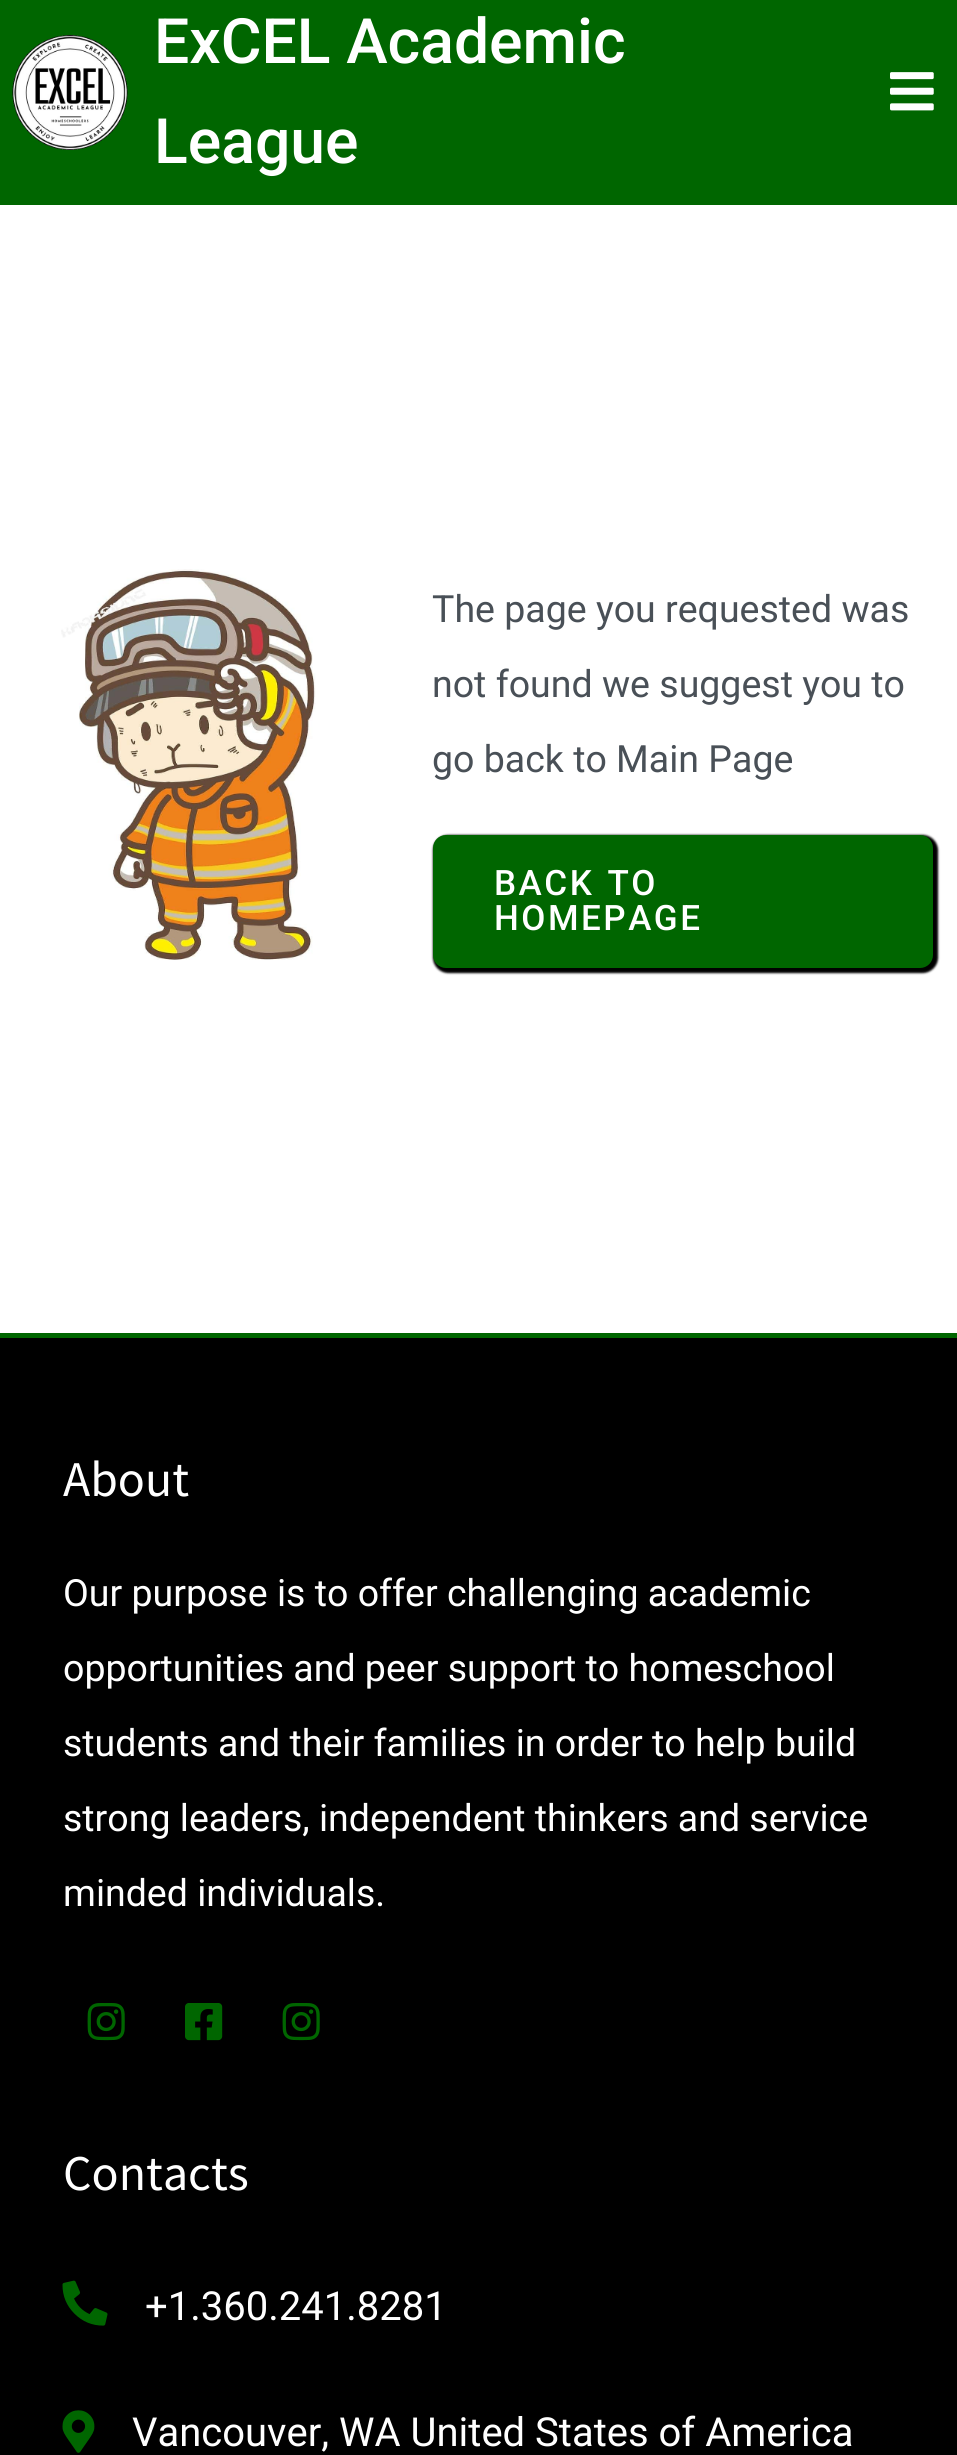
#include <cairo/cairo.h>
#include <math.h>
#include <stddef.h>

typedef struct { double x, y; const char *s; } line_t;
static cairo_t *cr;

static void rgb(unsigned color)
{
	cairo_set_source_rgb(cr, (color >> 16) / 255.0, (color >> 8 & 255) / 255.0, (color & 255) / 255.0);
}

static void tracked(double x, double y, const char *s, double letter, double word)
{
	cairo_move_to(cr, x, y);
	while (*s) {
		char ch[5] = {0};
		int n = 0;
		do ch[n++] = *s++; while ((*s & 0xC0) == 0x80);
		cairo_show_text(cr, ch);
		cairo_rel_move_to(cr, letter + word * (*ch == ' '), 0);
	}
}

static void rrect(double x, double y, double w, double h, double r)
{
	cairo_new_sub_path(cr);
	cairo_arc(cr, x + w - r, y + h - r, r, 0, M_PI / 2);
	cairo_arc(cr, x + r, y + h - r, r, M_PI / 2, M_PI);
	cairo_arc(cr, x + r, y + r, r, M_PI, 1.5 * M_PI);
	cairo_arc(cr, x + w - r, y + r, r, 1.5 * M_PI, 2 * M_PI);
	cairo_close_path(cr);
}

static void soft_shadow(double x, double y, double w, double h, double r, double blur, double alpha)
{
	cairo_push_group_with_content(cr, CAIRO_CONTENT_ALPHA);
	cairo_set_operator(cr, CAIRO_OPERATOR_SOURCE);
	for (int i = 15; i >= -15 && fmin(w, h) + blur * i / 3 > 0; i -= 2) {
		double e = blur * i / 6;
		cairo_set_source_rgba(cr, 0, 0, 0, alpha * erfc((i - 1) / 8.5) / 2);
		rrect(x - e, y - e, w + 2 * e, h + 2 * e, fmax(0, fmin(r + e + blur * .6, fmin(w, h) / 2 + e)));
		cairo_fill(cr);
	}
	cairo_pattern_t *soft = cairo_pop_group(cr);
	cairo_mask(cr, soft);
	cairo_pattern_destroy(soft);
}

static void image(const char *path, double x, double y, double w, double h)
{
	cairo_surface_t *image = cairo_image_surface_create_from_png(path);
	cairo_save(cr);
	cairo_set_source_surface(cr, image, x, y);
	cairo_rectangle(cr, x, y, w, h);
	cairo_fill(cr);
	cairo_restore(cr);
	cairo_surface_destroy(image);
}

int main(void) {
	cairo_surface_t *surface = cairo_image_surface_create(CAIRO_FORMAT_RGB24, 957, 2455);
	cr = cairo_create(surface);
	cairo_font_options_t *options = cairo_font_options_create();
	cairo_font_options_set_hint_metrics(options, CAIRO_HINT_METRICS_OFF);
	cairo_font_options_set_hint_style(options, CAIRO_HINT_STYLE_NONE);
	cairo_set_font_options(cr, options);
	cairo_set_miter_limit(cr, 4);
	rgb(0xffffff);
	cairo_paint(cr);
	rgb(0x006600);
	cairo_rectangle(cr, 0, 0, 957, 205);
	cairo_fill(cr);
	image("img/1.png", 12, 35, 116, 115);
	image("img/2.png", 890, 72, 44, 39);
	image("img/3.png", 61, 569, 255, 391);
	rgb(0x000000);
	soft_shadow(433, 835, 505, 138, 15, 1, 1);
	rgb(0x006600);
	rrect(433, 835, 500, 133, 13);
	cairo_fill(cr);
	rgb(0x000000);
	cairo_rectangle(cr, 0, 1338, 957, 1117);
	cairo_fill(cr);
	rgb(0x006600);
	cairo_rectangle(cr, 0, 1333, 957, 5);
	cairo_fill(cr);
	image("img/4.png", 87, 2003, 38, 38);
	image("img/5.png", 185, 2003, 38, 38);
	image("img/4.png", 282, 2003, 38, 38);
	image("img/6.png", 62, 2280, 46, 46);
	image("img/7.png", 62, 2410, 33, 43);
	cairo_select_font_face(cr, "Roboto Medium", CAIRO_FONT_SLANT_NORMAL, CAIRO_FONT_WEIGHT_NORMAL);
	cairo_set_font_size(cr, 62.5);
	rgb(0xffffff);
	cairo_move_to(cr, 154, 63);
	cairo_show_text(cr, "ExCEL Academic");
	cairo_move_to(cr, 154, 163);
	cairo_show_text(cr, "League");
	cairo_select_font_face(cr, "Roboto", CAIRO_FONT_SLANT_NORMAL, CAIRO_FONT_WEIGHT_NORMAL);
	cairo_set_font_size(cr, 37.5);
	rgb(0x495057);
	{
		static const line_t items[] = {
			{432, 622, "The page you requested was"},
			{432, 697, "not found we suggest you to"},
			{432, 772, "go back to Main Page"},
		};
		for (size_t i = 0; i < sizeof items / sizeof *items; i++) {
			cairo_move_to(cr, items[i].x, items[i].y);
			cairo_show_text(cr, items[i].s);
		}
	}
	cairo_select_font_face(cr, "Roboto Medium", CAIRO_FONT_SLANT_NORMAL, CAIRO_FONT_WEIGHT_NORMAL);
	cairo_set_font_size(cr, 35);
	rgb(0xffffff);
	tracked(494, 895, "BACK TO", 2.5, 2);
	tracked(494, 930, "HOMEPAGE", 2.5, 0);
	cairo_select_font_face(cr, "Source Sans Pro", CAIRO_FONT_SLANT_NORMAL, CAIRO_FONT_WEIGHT_NORMAL);
	cairo_set_font_size(cr, 50);
	cairo_move_to(cr, 63, 1496);
	cairo_show_text(cr, "About");
	cairo_select_font_face(cr, "Roboto", CAIRO_FONT_SLANT_NORMAL, CAIRO_FONT_WEIGHT_NORMAL);
	cairo_set_font_size(cr, 37.5);
	{
		static const line_t items[] = {
			{63, 1606, "Our purpose is to offer challenging academic"},
			{63, 1681, "opportunities and peer support to homeschool"},
			{63, 1756, "students and their families in order to help build"},
			{63, 1831, "strong leaders, independent thinkers and service"},
			{63, 1906, "minded individuals."},
		};
		for (size_t i = 0; i < sizeof items / sizeof *items; i++) {
			cairo_move_to(cr, items[i].x, items[i].y);
			cairo_show_text(cr, items[i].s);
		}
	}
	cairo_select_font_face(cr, "Source Sans Pro", CAIRO_FONT_SLANT_NORMAL, CAIRO_FONT_WEIGHT_NORMAL);
	cairo_set_font_size(cr, 50);
	cairo_move_to(cr, 63, 2190);
	cairo_show_text(cr, "Contacts");
	cairo_select_font_face(cr, "Roboto", CAIRO_FONT_SLANT_NORMAL, CAIRO_FONT_WEIGHT_NORMAL);
	cairo_set_font_size(cr, 40);
	cairo_move_to(cr, 145, 2320);
	cairo_show_text(cr, "+1.360.241.8281");
	cairo_move_to(cr, 132, 2446);
	cairo_show_text(cr, "Vancouver, WA United States of America");
	cairo_surface_write_to_png(surface, "page.png");
	cairo_font_options_destroy(options);
	cairo_destroy(cr);
	cairo_surface_destroy(surface);
	return 0;
}
